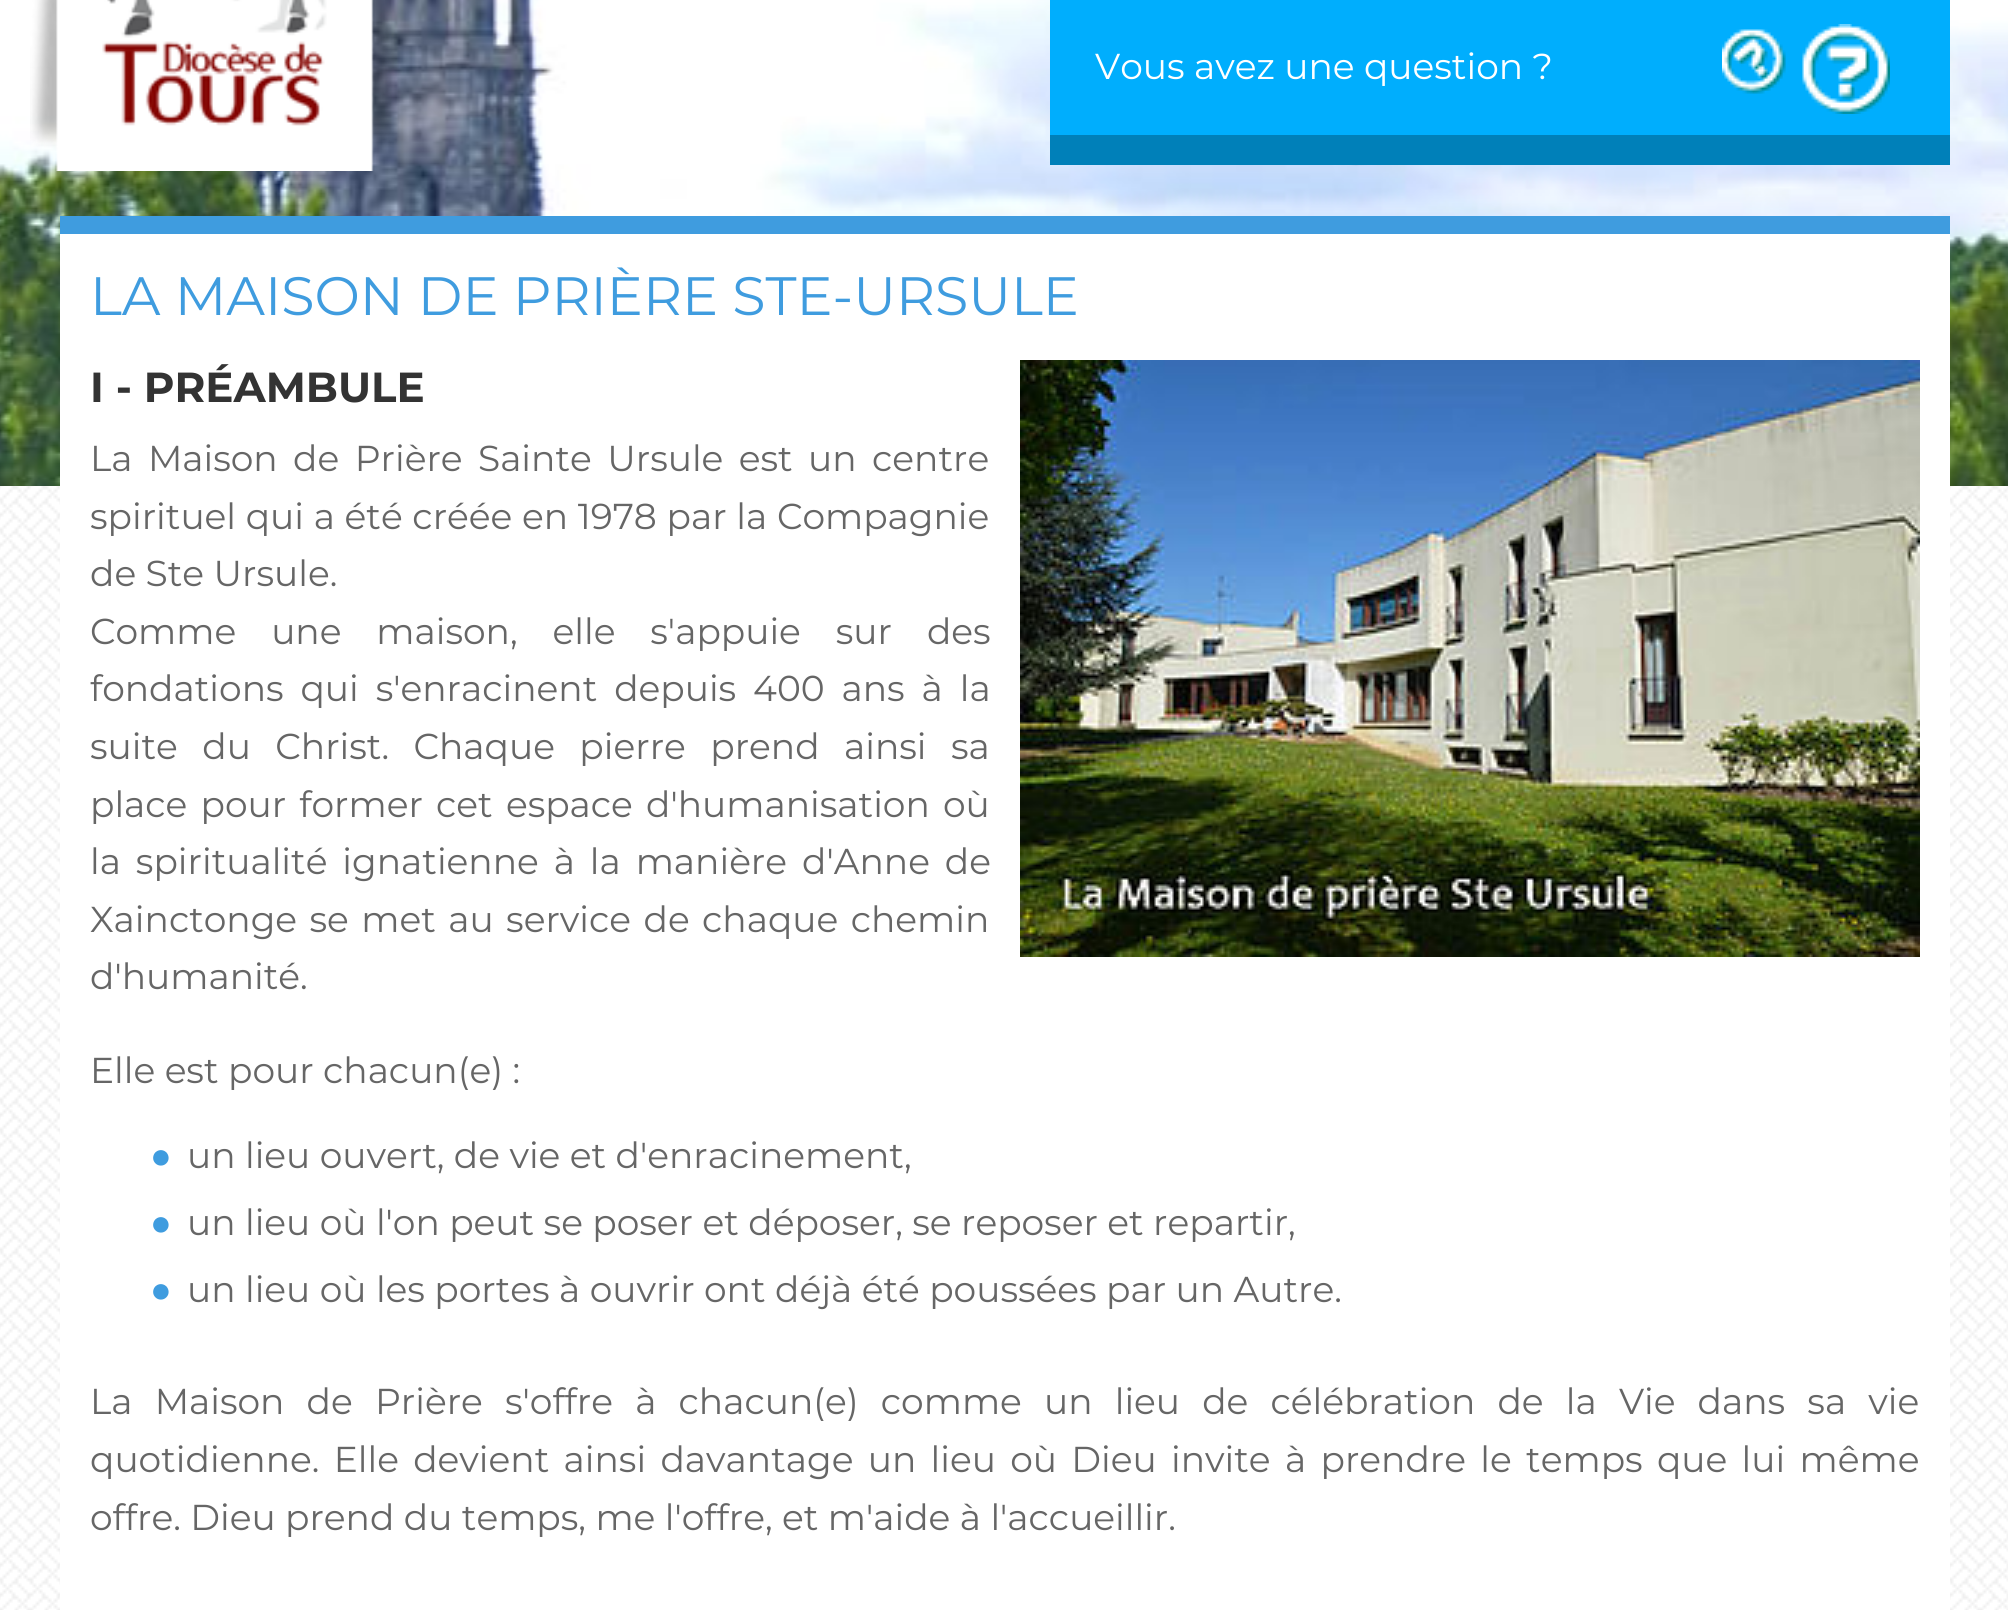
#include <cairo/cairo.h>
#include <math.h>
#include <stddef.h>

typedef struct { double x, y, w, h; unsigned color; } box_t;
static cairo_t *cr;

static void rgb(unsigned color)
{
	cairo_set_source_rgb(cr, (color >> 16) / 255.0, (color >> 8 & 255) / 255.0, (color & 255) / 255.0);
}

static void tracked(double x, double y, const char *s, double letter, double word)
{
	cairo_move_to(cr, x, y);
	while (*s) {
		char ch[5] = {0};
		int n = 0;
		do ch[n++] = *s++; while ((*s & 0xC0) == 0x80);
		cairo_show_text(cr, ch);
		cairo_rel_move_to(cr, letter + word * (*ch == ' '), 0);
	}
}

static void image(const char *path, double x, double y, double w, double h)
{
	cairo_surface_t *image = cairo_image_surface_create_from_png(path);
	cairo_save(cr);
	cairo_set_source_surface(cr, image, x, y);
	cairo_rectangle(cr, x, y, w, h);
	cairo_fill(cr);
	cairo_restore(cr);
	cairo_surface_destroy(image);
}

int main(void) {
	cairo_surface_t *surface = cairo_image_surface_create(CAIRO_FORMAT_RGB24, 2008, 1610);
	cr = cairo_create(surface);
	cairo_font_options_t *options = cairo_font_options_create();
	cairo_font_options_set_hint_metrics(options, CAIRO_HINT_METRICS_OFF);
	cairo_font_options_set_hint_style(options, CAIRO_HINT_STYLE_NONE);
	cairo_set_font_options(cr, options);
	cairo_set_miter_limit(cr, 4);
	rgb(0xffffff);
	cairo_paint(cr);
	image("img/1.png", 0, 486, 2008, 1124);
	image("img/2.png", 0, 0, 2008, 486);
	image("img/3.png", 30, 0, 369, 171);
	rgb(0x00aefd);
	cairo_rectangle(cr, 1050, 0, 900, 135);
	cairo_fill(cr);
	image("img/4.png", 1722, 24, 168, 90);
	{
		static const box_t items[] = {
			{1050, 135, 900, 30, 0x0080b9},
			{60, 234, 1890, 1376, 0xffffff},
			{60, 216, 1890, 18, 0x3f9cdf},
		};
		for (size_t i = 0; i < sizeof items / sizeof *items; i++) {
			rgb(items[i].color);
			cairo_rectangle(cr, items[i].x, items[i].y, items[i].w, items[i].h);
			cairo_fill(cr);
		}
	}
	image("img/5.png", 1020, 360, 900, 597);
	cairo_select_font_face(cr, "Montserrat", CAIRO_FONT_SLANT_NORMAL, CAIRO_FONT_WEIGHT_NORMAL);
	cairo_set_font_size(cr, 36);
	rgb(0xffffff);
	cairo_move_to(cr, 1095, 79);
	cairo_show_text(cr, "Vous avez une question ?");
	cairo_set_font_size(cr, 54);
	rgb(0x3f9cdf);
	cairo_move_to(cr, 90, 315);
	cairo_show_text(cr, "LA MAISON DE PRIÈRE STE-URSULE");
	cairo_select_font_face(cr, "Montserrat", CAIRO_FONT_SLANT_NORMAL, CAIRO_FONT_WEIGHT_BOLD);
	cairo_set_font_size(cr, 42);
	rgb(0x333333);
	cairo_move_to(cr, 90, 402);
	cairo_show_text(cr, "I - PRÉAMBULE");
	cairo_select_font_face(cr, "Montserrat", CAIRO_FONT_SLANT_NORMAL, CAIRO_FONT_WEIGHT_NORMAL);
	cairo_set_font_size(cr, 36);
	rgb(0x666666);
	tracked(90, 471, "La Maison de Prière Sainte Ursule est un centre", 0, 6);
	tracked(90, 529, "spirituel qui a été créée en 1978 par la Compagnie", 0, 0.25);
	cairo_move_to(cr, 90, 586);
	cairo_show_text(cr, "de Ste Ursule.");
	tracked(90, 644, "Comme une maison, elle s'appuie sur des", 0, 25.5);
	tracked(90, 701, "fondations qui s'enracinent depuis 400 ans à la", 0, 7.5);
	tracked(90, 759, "suite du Christ. Chaque pierre prend ainsi sa", 0, 15);
	tracked(90, 817, "place pour former cet espace d'humanisation où", 0, 3.75);
	tracked(90, 874, "la spiritualité ignatienne à la manière d'Anne de", 0, 5.5);
	tracked(90, 932, "Xainctonge se met au service de chaque chemin", 0, 3);
	cairo_move_to(cr, 90, 989);
	cairo_show_text(cr, "d'humanité.");
	cairo_move_to(cr, 90, 1083);
	cairo_show_text(cr, "Elle est pour chacun(e) :");
	cairo_select_font_face(cr, "Liberation Serif", CAIRO_FONT_SLANT_NORMAL, CAIRO_FONT_WEIGHT_NORMAL);
	rgb(0x3f9cdf);
	cairo_move_to(cr, 150, 1168);
	cairo_show_text(cr, "●");
	cairo_select_font_face(cr, "Montserrat", CAIRO_FONT_SLANT_NORMAL, CAIRO_FONT_WEIGHT_NORMAL);
	rgb(0x666666);
	cairo_move_to(cr, 187, 1168);
	cairo_show_text(cr, "un lieu ouvert, de vie et d'enracinement,");
	cairo_select_font_face(cr, "Liberation Serif", CAIRO_FONT_SLANT_NORMAL, CAIRO_FONT_WEIGHT_NORMAL);
	rgb(0x3f9cdf);
	cairo_move_to(cr, 150, 1235);
	cairo_show_text(cr, "●");
	cairo_select_font_face(cr, "Montserrat", CAIRO_FONT_SLANT_NORMAL, CAIRO_FONT_WEIGHT_NORMAL);
	rgb(0x666666);
	cairo_move_to(cr, 187, 1235);
	cairo_show_text(cr, "un lieu où l'on peut se poser et déposer, se reposer et repartir,");
	cairo_select_font_face(cr, "Liberation Serif", CAIRO_FONT_SLANT_NORMAL, CAIRO_FONT_WEIGHT_NORMAL);
	rgb(0x3f9cdf);
	cairo_move_to(cr, 150, 1302);
	cairo_show_text(cr, "●");
	cairo_select_font_face(cr, "Montserrat", CAIRO_FONT_SLANT_NORMAL, CAIRO_FONT_WEIGHT_NORMAL);
	rgb(0x666666);
	cairo_move_to(cr, 187, 1302);
	cairo_show_text(cr, "un lieu où les portes à ouvrir ont déjà été poussées par un Autre.");
	tracked(90, 1414, "La Maison de Prière s'offre à chacun(e) comme un lieu de célébration de la Vie dans sa vie", 0, 12.75);
	tracked(90, 1472, "quotidienne. Elle devient ainsi davantage un lieu où Dieu invite à prendre le temps que lui même", 0, 4.9);
	cairo_move_to(cr, 90, 1530);
	cairo_show_text(cr, "offre. Dieu prend du temps, me l'offre, et m'aide à l'accueillir.");
	cairo_surface_write_to_png(surface, "page.png");
	cairo_font_options_destroy(options);
	cairo_destroy(cr);
	cairo_surface_destroy(surface);
	return 0;
}
